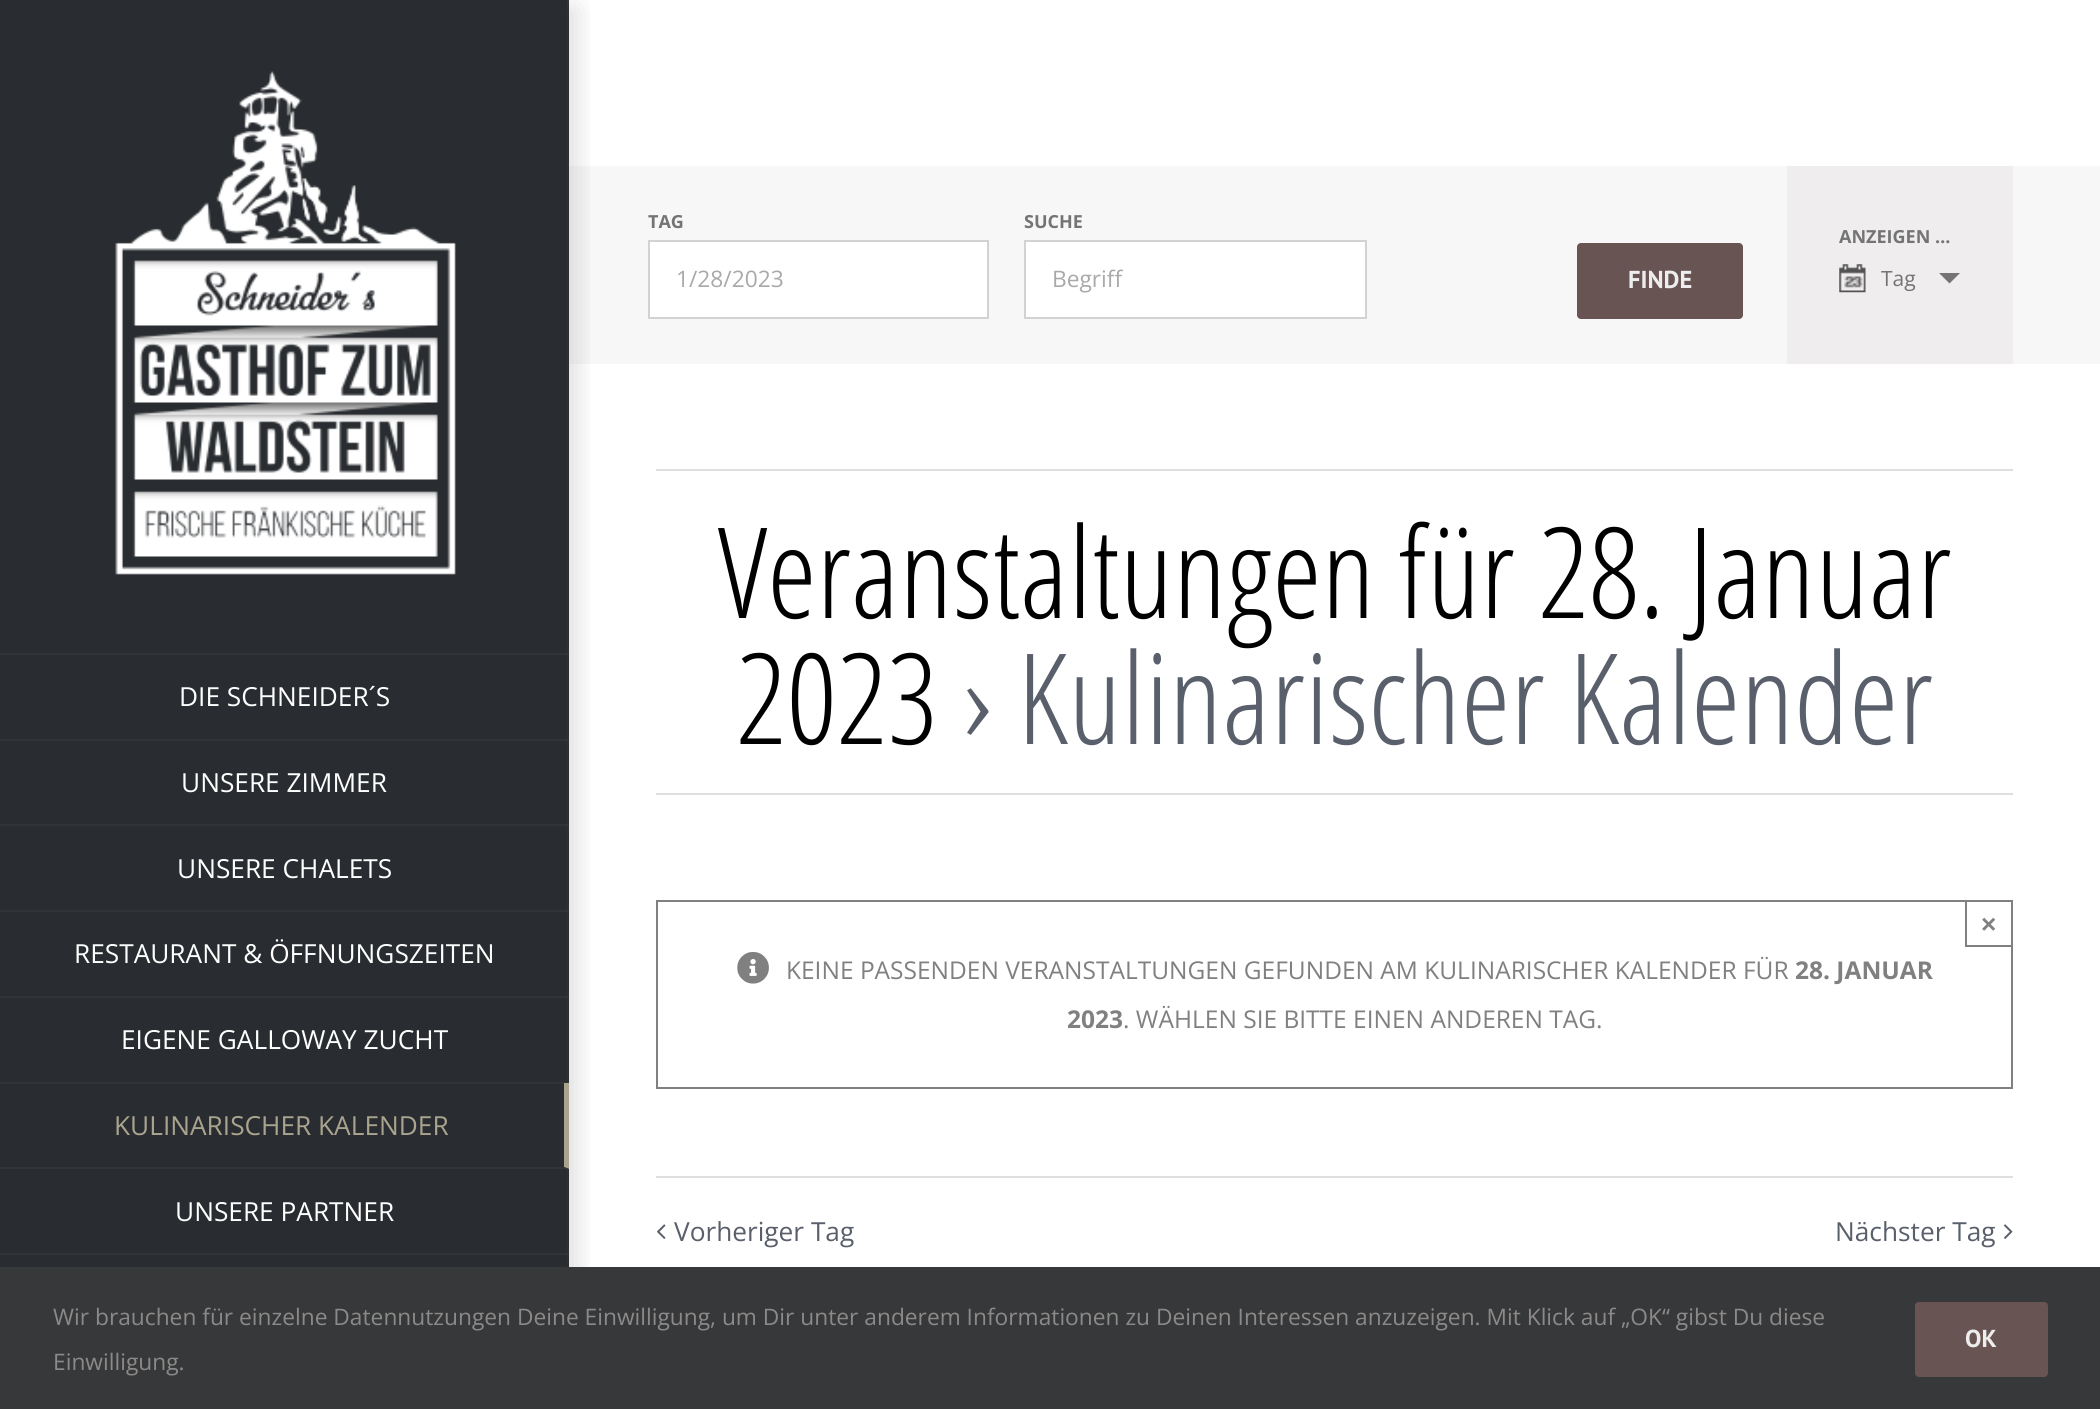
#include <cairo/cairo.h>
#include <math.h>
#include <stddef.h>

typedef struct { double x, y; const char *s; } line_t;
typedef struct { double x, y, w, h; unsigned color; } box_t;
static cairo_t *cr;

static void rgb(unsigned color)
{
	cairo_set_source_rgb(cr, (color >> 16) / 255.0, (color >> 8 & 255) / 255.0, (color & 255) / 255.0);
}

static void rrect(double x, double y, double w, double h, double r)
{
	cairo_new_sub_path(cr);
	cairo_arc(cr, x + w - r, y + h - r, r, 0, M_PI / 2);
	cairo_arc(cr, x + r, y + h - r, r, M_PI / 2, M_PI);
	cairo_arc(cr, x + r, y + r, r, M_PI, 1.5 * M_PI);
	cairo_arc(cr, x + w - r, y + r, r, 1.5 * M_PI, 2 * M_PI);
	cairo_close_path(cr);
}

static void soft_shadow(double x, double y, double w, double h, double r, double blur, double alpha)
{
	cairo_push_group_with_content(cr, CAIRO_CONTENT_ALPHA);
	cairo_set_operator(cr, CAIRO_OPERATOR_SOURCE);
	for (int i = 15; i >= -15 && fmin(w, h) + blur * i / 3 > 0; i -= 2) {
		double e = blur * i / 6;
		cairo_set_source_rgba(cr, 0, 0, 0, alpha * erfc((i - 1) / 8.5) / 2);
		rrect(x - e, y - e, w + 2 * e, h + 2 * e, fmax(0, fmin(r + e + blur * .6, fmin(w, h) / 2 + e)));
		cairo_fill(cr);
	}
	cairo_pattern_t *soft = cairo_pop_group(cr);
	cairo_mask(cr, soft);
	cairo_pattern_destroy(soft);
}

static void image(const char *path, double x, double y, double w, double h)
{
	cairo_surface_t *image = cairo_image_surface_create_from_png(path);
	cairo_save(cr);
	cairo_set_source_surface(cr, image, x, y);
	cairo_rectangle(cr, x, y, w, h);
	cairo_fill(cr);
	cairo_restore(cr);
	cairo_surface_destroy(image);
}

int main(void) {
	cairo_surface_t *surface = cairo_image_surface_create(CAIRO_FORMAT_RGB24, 2100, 1409);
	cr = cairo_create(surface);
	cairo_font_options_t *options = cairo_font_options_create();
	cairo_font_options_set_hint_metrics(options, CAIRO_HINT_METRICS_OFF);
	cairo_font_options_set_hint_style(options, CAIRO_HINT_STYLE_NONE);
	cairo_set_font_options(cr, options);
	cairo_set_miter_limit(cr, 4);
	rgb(0xffffff);
	cairo_paint(cr);
	{
		static const box_t items[] = {
			{0, 0, 567, 1267, 0x292c30},
			{567, 0, 2, 1267, 0x313539},
			{569, 166, 1218, 198, 0xf8f7f7},
		};
		for (size_t i = 0; i < sizeof items / sizeof *items; i++) {
			rgb(items[i].color);
			cairo_rectangle(cr, items[i].x, items[i].y, items[i].w, items[i].h);
			cairo_fill(cr);
		}
	}
	cairo_save(cr);
	cairo_rectangle(cr, 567, 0, 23, 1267);
	cairo_clip(cr);
	rgb(0x000000);
	soft_shadow(550, 9, 26, 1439, 0, 13, 0.14);
	cairo_restore(cr);
	image("img/1.png", 115, 71, 341, 504);
	{
		static const box_t items[] = {
			{0, 653, 569, 2, 0x313539},
			{0, 739, 569, 2, 0x313539},
			{0, 824, 569, 2, 0x313539},
			{0, 910, 569, 2, 0x313539},
			{0, 996, 569, 2, 0x313539},
			{0, 1082, 569, 2, 0x313539},
		};
		for (size_t i = 0; i < sizeof items / sizeof *items; i++) {
			rgb(items[i].color);
			cairo_rectangle(cr, items[i].x, items[i].y, items[i].w, items[i].h);
			cairo_fill(cr);
		}
	}
	rgb(0xaaa48f);
	cairo_new_path(cr);
	cairo_move_to(cr, 569, 1083);
	cairo_line_to(cr, 569, 1169);
	cairo_line_to(cr, 564, 1167);
	cairo_line_to(cr, 564, 1083);
	cairo_close_path(cr);
	cairo_fill(cr);
	rgb(0x313539);
	cairo_new_path(cr);
	cairo_move_to(cr, 569, 1169);
	cairo_line_to(cr, 0, 1169);
	cairo_line_to(cr, 0, 1167);
	cairo_line_to(cr, 564, 1167);
	cairo_close_path(cr);
	cairo_fill(cr);
	cairo_rectangle(cr, 0, 1253, 569, 2);
	cairo_fill(cr);
	rgb(0xf8f7f7);
	cairo_rectangle(cr, 2013, 166, 87, 198);
	cairo_fill(cr);
	rgb(0xffffff);
	cairo_rectangle(cr, 649, 241, 339, 77);
	cairo_fill_preserve(cr);
	rgb(0xd2d2d2);
	cairo_stroke(cr);
	rgb(0xffffff);
	cairo_rectangle(cr, 1025, 241, 341, 77);
	cairo_fill_preserve(cr);
	rgb(0xd2d2d2);
	cairo_stroke(cr);
	rgb(0x685453);
	rrect(1577, 243, 166, 76, 4);
	cairo_fill(cr);
	rgb(0xefeded);
	cairo_rectangle(cr, 1787, 166, 226, 198);
	cairo_fill(cr);
	image("img/2.png", 1839, 264, 27, 29);
	rgb(0x747474);
	cairo_new_path(cr);
	cairo_move_to(cr, 1939, 273);
	cairo_line_to(cr, 1960, 273);
	cairo_line_to(cr, 1949.5, 283.5);
	cairo_close_path(cr);
	cairo_fill(cr);
	rgb(0xe0dede);
	cairo_rectangle(cr, 656, 469, 1357, 2);
	cairo_fill(cr);
	cairo_rectangle(cr, 656, 793, 1357, 2);
	cairo_fill(cr);
	cairo_rectangle(cr, 657, 901, 1355, 187);
	rgb(0x808080);
	cairo_stroke(cr);
	cairo_rectangle(cr, 1966, 901, 46, 45);
	cairo_stroke(cr);
	image("img/3.png", 737, 951, 32, 33);
	rgb(0xe0dede);
	cairo_rectangle(cr, 656, 1176, 1357, 2);
	cairo_fill(cr);
	image("img/4.png", 657, 1224, 9, 15);
	image("img/5.png", 2004, 1224, 9, 15);
	rgb(0x363839);
	cairo_rectangle(cr, 0, 1267, 2100, 142);
	cairo_fill(cr);
	rgb(0x685453);
	rrect(1915, 1302, 133, 75, 4);
	cairo_fill(cr);
	cairo_select_font_face(cr, "Open Sans", CAIRO_FONT_SLANT_NORMAL, CAIRO_FONT_WEIGHT_NORMAL);
	cairo_set_font_size(cr, 26.25);
	rgb(0xffffff);
	{
		static const line_t items[] = {
			{179, 706, "DIE SCHNEIDER´S"},
			{181, 792, "UNSERE ZIMMER"},
			{177, 878, "UNSERE CHALETS"},
			{74, 963, "RESTAURANT & ÖFFNUNGSZEITEN"},
			{121, 1049, "EIGENE GALLOWAY ZUCHT"},
		};
		for (size_t i = 0; i < sizeof items / sizeof *items; i++) {
			cairo_move_to(cr, items[i].x, items[i].y);
			cairo_show_text(cr, items[i].s);
		}
	}
	rgb(0xaaa48f);
	cairo_move_to(cr, 114, 1135);
	cairo_show_text(cr, "KULINARISCHER KALENDER");
	rgb(0xffffff);
	cairo_move_to(cr, 175, 1221);
	cairo_show_text(cr, "UNSERE PARTNER");
	cairo_save(cr);
	cairo_rectangle(cr, 648, 214, 341, 17);
	cairo_clip(cr);
	cairo_select_font_face(cr, "Open Sans", CAIRO_FONT_SLANT_NORMAL, CAIRO_FONT_WEIGHT_BOLD);
	cairo_set_font_size(cr, 18);
	rgb(0x747474);
	cairo_move_to(cr, 648, 228);
	cairo_show_text(cr, "TAG");
	cairo_restore(cr);
	cairo_set_font_size(cr, 22.75);
	rgb(0xaaa9a9);
	cairo_move_to(cr, 676, 287);
	cairo_show_text(cr, "1/28/2023");
	cairo_select_font_face(cr, "Open Sans", CAIRO_FONT_SLANT_NORMAL, CAIRO_FONT_WEIGHT_BOLD);
	cairo_set_font_size(cr, 18);
	rgb(0x747474);
	cairo_move_to(cr, 1024, 228);
	cairo_show_text(cr, "SUCHE");
	cairo_select_font_face(cr, "Open Sans", CAIRO_FONT_SLANT_NORMAL, CAIRO_FONT_WEIGHT_NORMAL);
	cairo_set_font_size(cr, 22.75);
	rgb(0xaaa9a9);
	cairo_move_to(cr, 1052, 287);
	cairo_show_text(cr, "Begriff");
	cairo_select_font_face(cr, "PT Sans", CAIRO_FONT_SLANT_NORMAL, CAIRO_FONT_WEIGHT_BOLD);
	cairo_set_font_size(cr, 24.5);
	rgb(0xededed);
	cairo_move_to(cr, 1628, 288);
	cairo_show_text(cr, "FINDE");
	cairo_select_font_face(cr, "Open Sans", CAIRO_FONT_SLANT_NORMAL, CAIRO_FONT_WEIGHT_BOLD);
	cairo_set_font_size(cr, 18);
	rgb(0x747474);
	cairo_move_to(cr, 1839, 243);
	cairo_show_text(cr, "ANZEIGEN …");
	cairo_select_font_face(cr, "Open Sans", CAIRO_FONT_SLANT_NORMAL, CAIRO_FONT_WEIGHT_NORMAL);
	cairo_set_font_size(cr, 21);
	cairo_move_to(cr, 1881, 286);
	cairo_show_text(cr, "Tag");
	cairo_select_font_face(cr, "Open Sans Condensed Light", CAIRO_FONT_SLANT_NORMAL, CAIRO_FONT_WEIGHT_NORMAL);
	cairo_set_font_size(cr, 126);
	rgb(0x000000);
	cairo_move_to(cr, 718, 618);
	cairo_show_text(cr, "Veranstaltungen für 28. Januar");
	cairo_move_to(cr, 736, 744);
	cairo_show_text(cr, "2023");
	rgb(0x595f6b);
	cairo_move_to(cr, 962, 744);
	cairo_show_text(cr, "› Kulinarischer Kalender");
	cairo_select_font_face(cr, "Liberation Sans", CAIRO_FONT_SLANT_NORMAL, CAIRO_FONT_WEIGHT_BOLD);
	cairo_set_font_size(cr, 26.25);
	rgb(0x808080);
	cairo_move_to(cr, 1981, 933);
	cairo_show_text(cr, "×");
	cairo_select_font_face(cr, "Open Sans", CAIRO_FONT_SLANT_NORMAL, CAIRO_FONT_WEIGHT_NORMAL);
	cairo_set_font_size(cr, 24.5);
	cairo_move_to(cr, 786, 979);
	cairo_show_text(cr, "KEINE PASSENDEN VERANSTALTUNGEN GEFUNDEN AM KULINARISCHER KALENDER FÜR");
	cairo_select_font_face(cr, "Open Sans", CAIRO_FONT_SLANT_NORMAL, CAIRO_FONT_WEIGHT_BOLD);
	cairo_move_to(cr, 1795, 979);
	cairo_show_text(cr, "28. JANUAR");
	cairo_move_to(cr, 1067, 1028);
	cairo_show_text(cr, "2023");
	cairo_select_font_face(cr, "Open Sans", CAIRO_FONT_SLANT_NORMAL, CAIRO_FONT_WEIGHT_NORMAL);
	cairo_move_to(cr, 1123, 1028);
	cairo_show_text(cr, ". WÄHLEN SIE BITTE EINEN ANDEREN TAG.");
	cairo_set_font_size(cr, 26.25);
	rgb(0x595f6b);
	cairo_move_to(cr, 674, 1241);
	cairo_show_text(cr, "Vorheriger Tag");
	cairo_move_to(cr, 1835, 1241);
	cairo_show_text(cr, "Nächster Tag");
	cairo_set_font_size(cr, 22.75);
	rgb(0x8c8989);
	cairo_move_to(cr, 53, 1325);
	cairo_show_text(cr, "Wir brauchen für einzelne Datennutzungen Deine Einwilligung, um Dir unter anderem Informationen zu Deinen Interessen anzuzeigen. Mit Klick auf „OK“ gibst Du diese");
	cairo_move_to(cr, 53, 1370);
	cairo_show_text(cr, "Einwilligung.");
	cairo_select_font_face(cr, "PT Sans", CAIRO_FONT_SLANT_NORMAL, CAIRO_FONT_WEIGHT_BOLD);
	cairo_set_font_size(cr, 24.5);
	rgb(0xededed);
	cairo_move_to(cr, 1965, 1347);
	cairo_show_text(cr, "OK");
	cairo_surface_write_to_png(surface, "page.png");
	cairo_font_options_destroy(options);
	cairo_destroy(cr);
	cairo_surface_destroy(surface);
	return 0;
}
